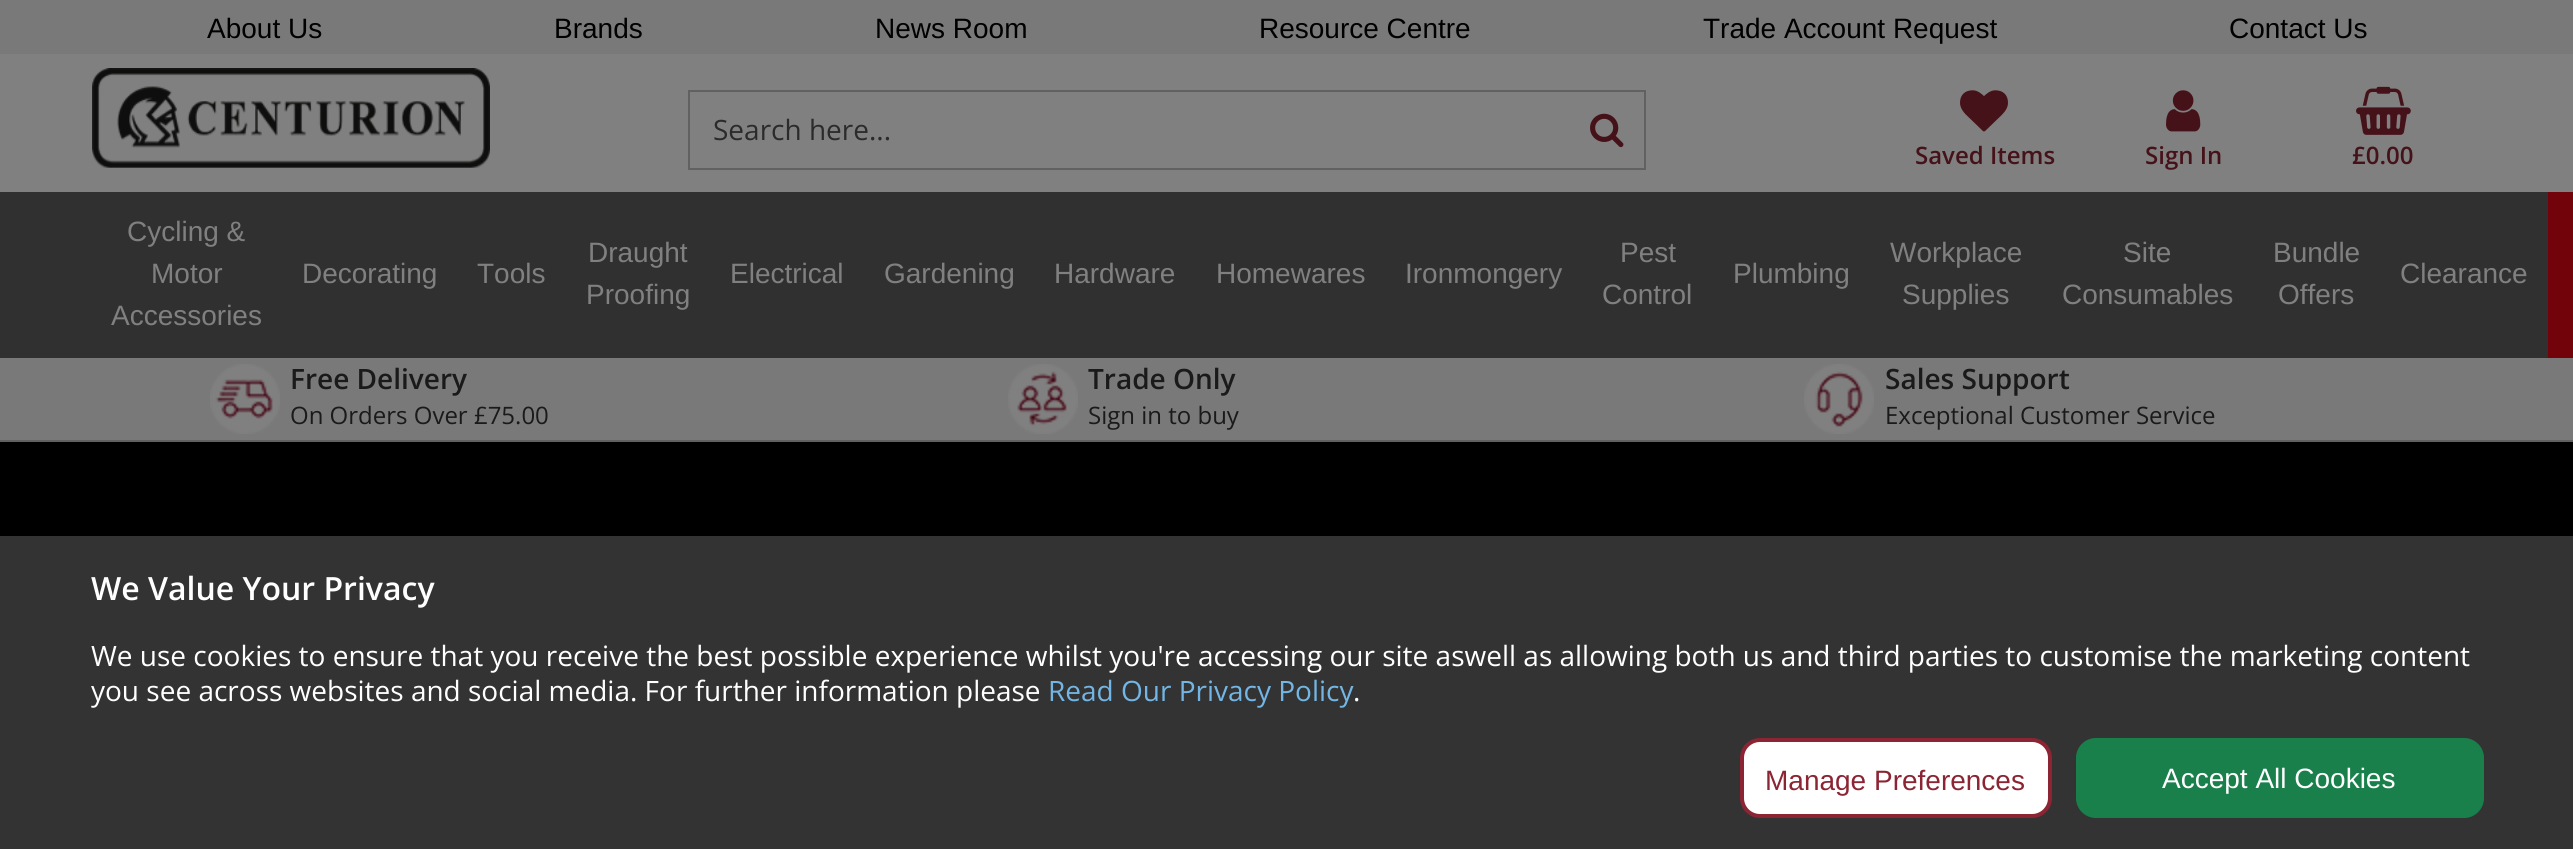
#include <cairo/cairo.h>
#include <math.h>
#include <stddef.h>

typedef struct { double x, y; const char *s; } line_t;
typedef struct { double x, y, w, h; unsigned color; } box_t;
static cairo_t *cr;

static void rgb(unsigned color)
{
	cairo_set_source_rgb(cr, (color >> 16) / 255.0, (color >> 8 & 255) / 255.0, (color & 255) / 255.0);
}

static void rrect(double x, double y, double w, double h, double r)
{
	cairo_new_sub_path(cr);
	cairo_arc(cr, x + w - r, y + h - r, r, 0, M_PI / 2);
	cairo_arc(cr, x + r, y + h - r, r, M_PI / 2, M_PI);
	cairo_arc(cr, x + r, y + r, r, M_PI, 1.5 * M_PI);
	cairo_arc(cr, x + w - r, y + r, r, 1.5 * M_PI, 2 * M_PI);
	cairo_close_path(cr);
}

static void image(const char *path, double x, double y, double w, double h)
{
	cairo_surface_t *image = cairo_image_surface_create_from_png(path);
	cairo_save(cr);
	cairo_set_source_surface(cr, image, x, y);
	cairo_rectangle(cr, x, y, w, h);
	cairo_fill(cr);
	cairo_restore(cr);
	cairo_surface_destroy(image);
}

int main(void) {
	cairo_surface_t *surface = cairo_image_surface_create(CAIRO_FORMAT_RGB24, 2573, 849);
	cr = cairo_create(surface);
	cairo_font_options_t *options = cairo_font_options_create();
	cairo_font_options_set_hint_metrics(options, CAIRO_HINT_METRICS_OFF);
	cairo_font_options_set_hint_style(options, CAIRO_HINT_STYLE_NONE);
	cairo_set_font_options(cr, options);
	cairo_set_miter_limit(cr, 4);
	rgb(0x000000);
	cairo_paint(cr);
	rgb(0x797979);
	cairo_rectangle(cr, 0, 0, 2573, 54);
	cairo_fill(cr);
	rgb(0x808080);
	cairo_rectangle(cr, 0, 54, 2573, 138);
	cairo_fill(cr);
	image("img/1.png", 92, 68, 398, 100);
	{
		static const box_t items[] = {
			{688, 90, 958, 2, 0x616161},
			{1644, 90, 2, 80, 0x616161},
			{688, 168, 958, 2, 0x616161},
		};
		for (size_t i = 0; i < sizeof items / sizeof *items; i++) {
			rgb(items[i].color);
			cairo_rectangle(cr, items[i].x, items[i].y, items[i].w, items[i].h);
			cairo_fill(cr);
		}
	}
	image("img/2.png", 1590, 113, 34, 35);
	cairo_rectangle(cr, 688, 90, 2, 80);
	cairo_fill(cr);
	image("img/3.png", 1960, 90, 48, 42);
	image("img/4.png", 2166, 90, 35, 42);
	image("img/5.png", 2356, 86, 55, 49);
	{
		static const box_t items[] = {
			{0, 192, 2548, 166, 0x303030},
			{2548, 192, 25, 166, 0x72030a},
			{0, 358, 2573, 82, 0x797979},
		};
		for (size_t i = 0; i < sizeof items / sizeof *items; i++) {
			rgb(items[i].color);
			cairo_rectangle(cr, items[i].x, items[i].y, items[i].w, items[i].h);
			cairo_fill(cr);
		}
	}
	image("img/6.png", 210, 364, 70, 70);
	image("img/7.png", 1008, 364, 70, 70);
	image("img/8.png", 1804, 364, 70, 70);
	rgb(0x616161);
	cairo_rectangle(cr, 0, 440, 2573, 2);
	cairo_fill(cr);
	rgb(0x333333);
	cairo_rectangle(cr, 0, 536, 2573, 313);
	cairo_fill(cr);
	rgb(0xffffff);
	rrect(1742, 740, 308, 76, 18);
	cairo_fill_preserve(cr);
	rgb(0x8b2433);
	cairo_set_line_width(cr, 4);
	cairo_stroke(cr);
	rgb(0x19804c);
	rrect(2076, 738, 408, 80, 20);
	cairo_fill(cr);
	cairo_select_font_face(cr, "Liberation Sans", CAIRO_FONT_SLANT_NORMAL, CAIRO_FONT_WEIGHT_NORMAL);
	cairo_set_font_size(cr, 28);
	rgb(0x000000);
	{
		static const line_t items[] = {
			{207, 38, "About Us"},
			{554, 38, "Brands"},
			{875, 38, "News Room"},
			{1259, 38, "Resource Centre"},
			{1703, 38, "Trade Account Request"},
			{2229, 38, "Contact Us"},
		};
		for (size_t i = 0; i < sizeof items / sizeof *items; i++) {
			cairo_move_to(cr, items[i].x, items[i].y);
			cairo_show_text(cr, items[i].s);
		}
	}
	cairo_select_font_face(cr, "Open Sans", CAIRO_FONT_SLANT_NORMAL, CAIRO_FONT_WEIGHT_NORMAL);
	rgb(0x2b2b2b);
	cairo_move_to(cr, 713, 140);
	cairo_show_text(cr, "Search here...");
	cairo_select_font_face(cr, "Open Sans SemiBold", CAIRO_FONT_SLANT_NORMAL, CAIRO_FONT_WEIGHT_NORMAL);
	cairo_set_font_size(cr, 24);
	rgb(0x46121a);
	{
		static const line_t items[] = {
			{1915, 164, "Saved Items"},
			{2145, 164, "Sign In"},
			{2352, 164, "£0.00"},
		};
		for (size_t i = 0; i < sizeof items / sizeof *items; i++) {
			cairo_move_to(cr, items[i].x, items[i].y);
			cairo_show_text(cr, items[i].s);
		}
	}
	cairo_select_font_face(cr, "Liberation Sans", CAIRO_FONT_SLANT_NORMAL, CAIRO_FONT_WEIGHT_NORMAL);
	cairo_set_font_size(cr, 28);
	rgb(0x808080);
	{
		static const line_t items[] = {
			{127, 241, "Cycling &"},
			{151, 283, "Motor"},
			{111, 325, "Accessories"},
			{302, 283, "Decorating"},
			{477, 283, "Tools"},
			{588, 262, "Draught"},
			{586, 304, "Proofing"},
			{730, 283, "Electrical"},
			{884, 283, "Gardening"},
			{1054, 283, "Hardware"},
			{1216, 283, "Homewares"},
			{1405, 283, "Ironmongery"},
			{1620, 262, "Pest"},
			{1602, 304, "Control"},
			{1733, 283, "Plumbing"},
			{1890, 262, "Workplace"},
			{1902, 304, "Supplies"},
			{2123, 262, "Site"},
			{2062, 304, "Consumables"},
			{2273, 262, "Bundle"},
			{2278, 304, "Offers"},
			{2400, 283, "Clearance"},
		};
		for (size_t i = 0; i < sizeof items / sizeof *items; i++) {
			cairo_move_to(cr, items[i].x, items[i].y);
			cairo_show_text(cr, items[i].s);
		}
	}
	cairo_select_font_face(cr, "Open Sans SemiBold", CAIRO_FONT_SLANT_NORMAL, CAIRO_FONT_WEIGHT_NORMAL);
	rgb(0x1a1a1a);
	cairo_move_to(cr, 290, 389);
	cairo_show_text(cr, "Free Delivery");
	cairo_select_font_face(cr, "Open Sans", CAIRO_FONT_SLANT_NORMAL, CAIRO_FONT_WEIGHT_NORMAL);
	cairo_set_font_size(cr, 24);
	cairo_move_to(cr, 290, 424);
	cairo_show_text(cr, "On Orders Over £75.00");
	cairo_select_font_face(cr, "Open Sans SemiBold", CAIRO_FONT_SLANT_NORMAL, CAIRO_FONT_WEIGHT_NORMAL);
	cairo_set_font_size(cr, 28);
	cairo_move_to(cr, 1088, 389);
	cairo_show_text(cr, "Trade Only");
	cairo_select_font_face(cr, "Open Sans", CAIRO_FONT_SLANT_NORMAL, CAIRO_FONT_WEIGHT_NORMAL);
	cairo_set_font_size(cr, 24);
	cairo_move_to(cr, 1088, 424);
	cairo_show_text(cr, "Sign in to buy");
	cairo_select_font_face(cr, "Open Sans SemiBold", CAIRO_FONT_SLANT_NORMAL, CAIRO_FONT_WEIGHT_NORMAL);
	cairo_set_font_size(cr, 28);
	cairo_move_to(cr, 1885, 389);
	cairo_show_text(cr, "Sales Support");
	cairo_select_font_face(cr, "Open Sans", CAIRO_FONT_SLANT_NORMAL, CAIRO_FONT_WEIGHT_NORMAL);
	cairo_set_font_size(cr, 24);
	cairo_move_to(cr, 1885, 424);
	cairo_show_text(cr, "Exceptional Customer Service");
	cairo_select_font_face(cr, "Open Sans SemiBold", CAIRO_FONT_SLANT_NORMAL, CAIRO_FONT_WEIGHT_NORMAL);
	cairo_set_font_size(cr, 32);
	rgb(0xffffff);
	cairo_move_to(cr, 91, 600);
	cairo_show_text(cr, "We Value Your Privacy");
	cairo_select_font_face(cr, "Open Sans", CAIRO_FONT_SLANT_NORMAL, CAIRO_FONT_WEIGHT_NORMAL);
	cairo_set_font_size(cr, 28);
	cairo_move_to(cr, 91, 666);
	cairo_show_text(cr, "We use cookies to ensure that you receive the best possible experience whilst you're accessing our site aswell as allowing both us and third parties to customise the marketing content");
	cairo_move_to(cr, 91, 701);
	cairo_show_text(cr, "you see across websites and social media. For further information please");
	rgb(0x73b6e5);
	cairo_move_to(cr, 1048, 701);
	cairo_show_text(cr, "Read Our Privacy Policy");
	rgb(0xffffff);
	cairo_move_to(cr, 1353, 701);
	cairo_show_text(cr, ".");
	cairo_select_font_face(cr, "Liberation Sans", CAIRO_FONT_SLANT_NORMAL, CAIRO_FONT_WEIGHT_NORMAL);
	rgb(0x8b2433);
	cairo_move_to(cr, 1765, 790);
	cairo_show_text(cr, "Manage Preferences");
	rgb(0xffffff);
	cairo_move_to(cr, 2162, 788);
	cairo_show_text(cr, "Accept All Cookies");
	cairo_surface_write_to_png(surface, "page.png");
	cairo_font_options_destroy(options);
	cairo_destroy(cr);
	cairo_surface_destroy(surface);
	return 0;
}
